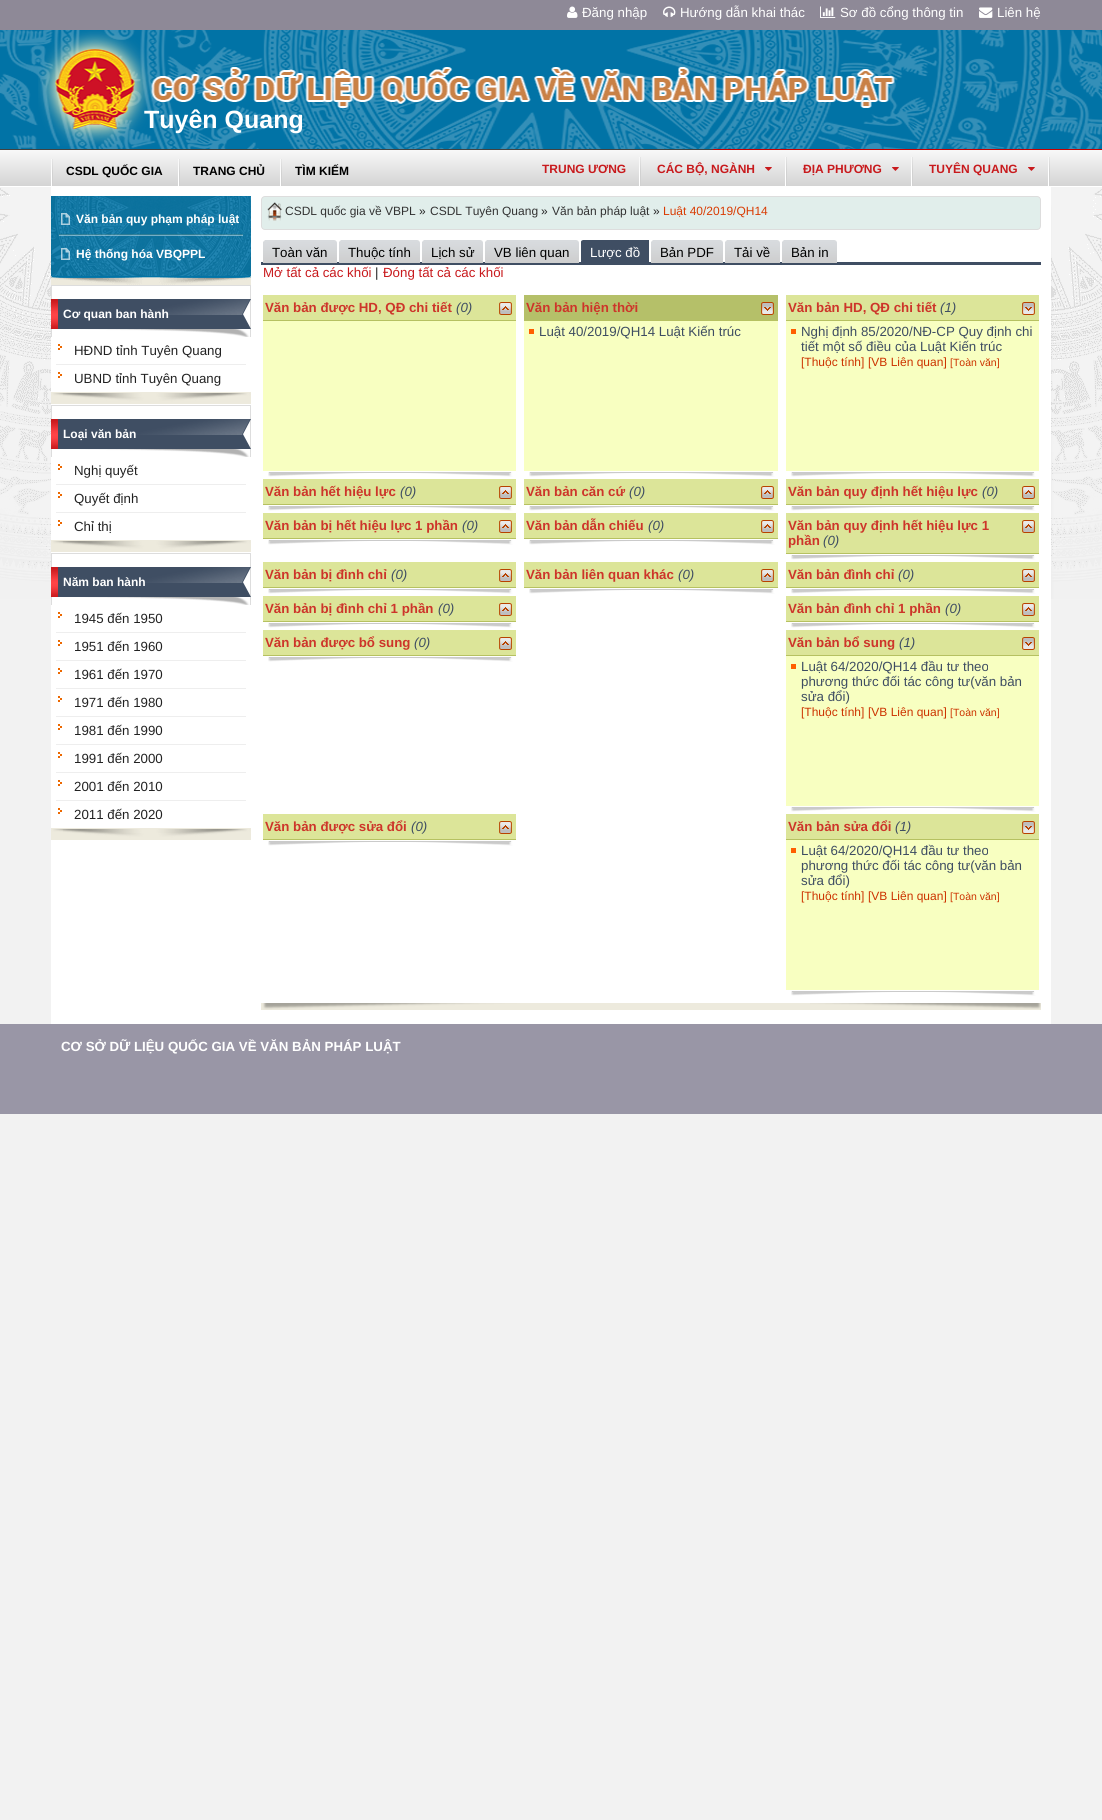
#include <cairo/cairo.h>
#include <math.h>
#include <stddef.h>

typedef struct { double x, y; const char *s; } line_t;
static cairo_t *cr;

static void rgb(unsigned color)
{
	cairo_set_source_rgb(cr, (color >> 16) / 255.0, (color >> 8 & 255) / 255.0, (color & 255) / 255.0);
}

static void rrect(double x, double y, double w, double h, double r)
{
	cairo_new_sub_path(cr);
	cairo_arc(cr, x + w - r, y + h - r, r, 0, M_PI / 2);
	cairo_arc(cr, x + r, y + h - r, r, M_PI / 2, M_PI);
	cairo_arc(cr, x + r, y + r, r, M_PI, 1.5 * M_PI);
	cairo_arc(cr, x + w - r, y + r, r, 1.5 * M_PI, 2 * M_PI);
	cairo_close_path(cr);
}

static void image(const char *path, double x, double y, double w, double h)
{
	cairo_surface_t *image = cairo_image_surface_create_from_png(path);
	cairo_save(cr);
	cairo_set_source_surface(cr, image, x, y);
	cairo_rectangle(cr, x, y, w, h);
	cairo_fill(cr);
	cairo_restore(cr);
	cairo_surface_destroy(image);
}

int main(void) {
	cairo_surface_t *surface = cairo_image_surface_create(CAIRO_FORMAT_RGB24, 1102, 1820);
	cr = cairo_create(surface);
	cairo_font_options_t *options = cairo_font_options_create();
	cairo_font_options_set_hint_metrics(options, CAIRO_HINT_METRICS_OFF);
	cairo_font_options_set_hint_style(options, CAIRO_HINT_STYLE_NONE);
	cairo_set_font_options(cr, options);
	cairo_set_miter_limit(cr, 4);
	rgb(0xf2f2f2);
	cairo_paint(cr);
	rgb(0x8e8997);
	cairo_rectangle(cr, 0, 0, 1102, 30);
	cairo_fill(cr);
	image("img/1.png", 567, 6, 11, 12);
	image("img/2.png", 663, 6, 13, 11);
	image("img/3.png", 820, 6, 16, 12);
	image("img/4.png", 979, 7, 14, 11);
	image("img/5.png", 0, 30, 1102, 120);
	image("img/6.png", 38, 30, 857, 116);
	image("img/7.png", 0, 150, 1102, 36);
	image("img/8.png", 51, 159, 2, 27);
	image("img/8.png", 178, 159, 2, 27);
	image("img/8.png", 280, 159, 2, 27);
	image("img/9.png", 639, 157, 2, 29);
	image("img/9.png", 785, 157, 2, 29);
	image("img/10.png", 765, 167, 7, 4);
	image("img/9.png", 911, 157, 2, 29);
	image("img/10.png", 892, 167, 7, 4);
	image("img/9.png", 1048, 157, 2, 29);
	image("img/10.png", 1028, 167, 7, 4);
	image("img/11.png", 0, 186, 1102, 413);
	rgb(0xffffff);
	cairo_rectangle(cr, 51, 187, 1000, 837);
	cairo_fill(cr);
	rgb(0x0173a6);
	cairo_rectangle(cr, 51, 196, 200, 80);
	cairo_fill(cr);
	image("img/12.png", 51, 276, 200, 9);
	image("img/13.png", 51, 196, 200, 80);
	image("img/14.png", 59, 234, 184, 2);
	image("img/15.png", 61, 213, 9, 12);
	image("img/16.png", 61, 248, 9, 12);
	image("img/17.png", 51, 285, 200, 52);
	image("img/18.png", 141, 286, 110, 51);
	image("img/19.png", 58, 344, 4, 6);
	rgb(0xeeeeee);
	cairo_rectangle(cr, 56, 364, 190, 1);
	cairo_fill(cr);
	image("img/19.png", 58, 372, 4, 6);
	image("img/20.png", 51, 392, 200, 12);
	image("img/21.png", 63, 393, 186, 4);
	image("img/17.png", 51, 405, 200, 52);
	image("img/18.png", 141, 406, 110, 51);
	image("img/19.png", 58, 464, 4, 6);
	cairo_rectangle(cr, 56, 484, 190, 1);
	cairo_fill(cr);
	image("img/19.png", 58, 492, 4, 6);
	cairo_rectangle(cr, 56, 512, 190, 1);
	cairo_fill(cr);
	image("img/19.png", 58, 520, 4, 6);
	image("img/20.png", 51, 540, 200, 12);
	image("img/21.png", 63, 541, 186, 4);
	image("img/17.png", 51, 553, 200, 52);
	image("img/18.png", 141, 554, 110, 51);
	image("img/19.png", 58, 612, 4, 6);
	cairo_rectangle(cr, 56, 632, 190, 1);
	cairo_fill(cr);
	image("img/19.png", 58, 640, 4, 6);
	cairo_rectangle(cr, 56, 660, 190, 1);
	cairo_fill(cr);
	image("img/19.png", 58, 668, 4, 6);
	cairo_rectangle(cr, 56, 688, 190, 1);
	cairo_fill(cr);
	image("img/19.png", 58, 696, 4, 6);
	cairo_rectangle(cr, 56, 716, 190, 1);
	cairo_fill(cr);
	image("img/19.png", 58, 724, 4, 6);
	cairo_rectangle(cr, 56, 744, 190, 1);
	cairo_fill(cr);
	image("img/19.png", 58, 752, 4, 6);
	cairo_rectangle(cr, 56, 772, 190, 1);
	cairo_fill(cr);
	image("img/19.png", 58, 780, 4, 6);
	cairo_rectangle(cr, 56, 800, 190, 1);
	cairo_fill(cr);
	image("img/19.png", 58, 808, 4, 6);
	image("img/20.png", 51, 828, 200, 12);
	image("img/21.png", 63, 829, 186, 4);
	rgb(0xe1eeeb);
	rrect(261.5, 196.5, 779, 33, 3.5);
	cairo_fill_preserve(cr);
	rgb(0xdddddd);
	cairo_set_line_width(cr, 1);
	cairo_stroke(cr);
	image("img/22.png", 267, 202, 15, 19);
	rgb(0x3f4e63);
	cairo_rectangle(cr, 261, 262, 780, 3);
	cairo_fill(cr);
	image("img/23.png", 263, 240, 74, 23);
	image("img/24.png", 263, 240, 2, 2);
	image("img/25.png", 339, 240, 81, 23);
	image("img/26.png", 339, 240, 2, 2);
	image("img/27.png", 422, 240, 61, 23);
	image("img/26.png", 422, 240, 2, 2);
	image("img/28.png", 485, 240, 94, 23);
	image("img/24.png", 485, 240, 2, 2);
	cairo_rectangle(cr, 581, 240, 68, 22);
	cairo_fill(cr);
	image("img/29.png", 581, 240, 2, 2);
	image("img/30.png", 651, 240, 72, 23);
	image("img/26.png", 651, 240, 2, 2);
	image("img/31.png", 725, 240, 55, 23);
	image("img/24.png", 725, 240, 2, 2);
	image("img/32.png", 782, 240, 55, 23);
	image("img/26.png", 782, 240, 2, 2);
	rgb(0xdce599);
	cairo_rectangle(cr, 263, 295, 253, 25);
	cairo_fill(cr);
	rgb(0xb6c161);
	cairo_rectangle(cr, 263, 320, 253, 1);
	cairo_fill(cr);
	image("img/33.png", 499, 302, 13, 13);
	rgb(0xf8ffc1);
	cairo_rectangle(cr, 263, 321, 253, 150);
	cairo_fill(cr);
	image("img/34.png", 268, 472, 245, 5);
	image("img/35.png", 509, 472, 4, 4);
	rgb(0xb5c069);
	cairo_rectangle(cr, 524, 295, 254, 25);
	cairo_fill(cr);
	rgb(0xb6c161);
	cairo_rectangle(cr, 524, 320, 254, 1);
	cairo_fill(cr);
	image("img/36.png", 761, 302, 13, 13);
	rgb(0xf8ffc1);
	cairo_rectangle(cr, 524, 321, 254, 150);
	cairo_fill(cr);
	rgb(0xff5e00);
	cairo_rectangle(cr, 529, 329, 5, 5);
	cairo_fill(cr);
	image("img/37.png", 529, 472, 246, 5);
	image("img/38.png", 771, 472, 4, 4);
	rgb(0xdce599);
	cairo_rectangle(cr, 786, 295, 253, 25);
	cairo_fill(cr);
	rgb(0xb6c161);
	cairo_rectangle(cr, 786, 320, 253, 1);
	cairo_fill(cr);
	image("img/39.png", 1022, 302, 13, 13);
	rgb(0xf8ffc1);
	cairo_rectangle(cr, 786, 321, 253, 150);
	cairo_fill(cr);
	rgb(0xff5e00);
	cairo_rectangle(cr, 791, 329, 5, 5);
	cairo_fill(cr);
	image("img/40.png", 791, 472, 245, 5);
	image("img/38.png", 1032, 472, 4, 4);
	rgb(0xdce599);
	cairo_rectangle(cr, 263, 479, 253, 25);
	cairo_fill(cr);
	rgb(0xb6c161);
	cairo_rectangle(cr, 263, 504, 253, 1);
	cairo_fill(cr);
	image("img/33.png", 499, 486, 13, 13);
	image("img/34.png", 268, 506, 245, 5);
	image("img/35.png", 509, 506, 4, 4);
	rgb(0xdce599);
	cairo_rectangle(cr, 524, 479, 254, 25);
	cairo_fill(cr);
	rgb(0xb6c161);
	cairo_rectangle(cr, 524, 504, 254, 1);
	cairo_fill(cr);
	image("img/33.png", 761, 486, 13, 13);
	image("img/37.png", 529, 506, 246, 5);
	image("img/38.png", 771, 506, 4, 4);
	rgb(0xdce599);
	cairo_rectangle(cr, 786, 479, 253, 25);
	cairo_fill(cr);
	rgb(0xb6c161);
	cairo_rectangle(cr, 786, 504, 253, 1);
	cairo_fill(cr);
	image("img/33.png", 1022, 486, 13, 13);
	image("img/40.png", 791, 506, 245, 5);
	image("img/38.png", 1032, 506, 4, 4);
	rgb(0xdce599);
	cairo_rectangle(cr, 263, 513, 253, 25);
	cairo_fill(cr);
	rgb(0xb6c161);
	cairo_rectangle(cr, 263, 538, 253, 1);
	cairo_fill(cr);
	image("img/33.png", 499, 520, 13, 13);
	image("img/34.png", 268, 540, 245, 5);
	image("img/35.png", 509, 540, 4, 4);
	rgb(0xdce599);
	cairo_rectangle(cr, 524, 513, 254, 25);
	cairo_fill(cr);
	rgb(0xb6c161);
	cairo_rectangle(cr, 524, 538, 254, 1);
	cairo_fill(cr);
	image("img/33.png", 761, 520, 13, 13);
	image("img/37.png", 529, 540, 246, 5);
	image("img/38.png", 771, 540, 4, 4);
	rgb(0xdce599);
	cairo_rectangle(cr, 786, 513, 253, 40);
	cairo_fill(cr);
	rgb(0xb6c161);
	cairo_rectangle(cr, 786, 553, 253, 1);
	cairo_fill(cr);
	image("img/33.png", 1022, 520, 13, 13);
	image("img/40.png", 791, 555, 245, 5);
	image("img/38.png", 1032, 555, 4, 4);
	rgb(0xdce599);
	cairo_rectangle(cr, 263, 562, 253, 25);
	cairo_fill(cr);
	rgb(0xb6c161);
	cairo_rectangle(cr, 263, 587, 253, 1);
	cairo_fill(cr);
	image("img/33.png", 499, 569, 13, 13);
	image("img/34.png", 268, 589, 245, 5);
	image("img/35.png", 509, 589, 4, 4);
	rgb(0xdce599);
	cairo_rectangle(cr, 524, 562, 254, 25);
	cairo_fill(cr);
	rgb(0xb6c161);
	cairo_rectangle(cr, 524, 587, 254, 1);
	cairo_fill(cr);
	image("img/33.png", 761, 569, 13, 13);
	image("img/37.png", 529, 589, 246, 5);
	image("img/38.png", 771, 589, 4, 4);
	rgb(0xdce599);
	cairo_rectangle(cr, 786, 562, 253, 25);
	cairo_fill(cr);
	rgb(0xb6c161);
	cairo_rectangle(cr, 786, 587, 253, 1);
	cairo_fill(cr);
	image("img/33.png", 1022, 569, 13, 13);
	image("img/40.png", 791, 589, 245, 5);
	image("img/38.png", 1032, 589, 4, 4);
	rgb(0xdce599);
	cairo_rectangle(cr, 263, 596, 253, 25);
	cairo_fill(cr);
	rgb(0xb6c161);
	cairo_rectangle(cr, 263, 621, 253, 1);
	cairo_fill(cr);
	image("img/33.png", 499, 603, 13, 13);
	image("img/34.png", 268, 623, 245, 5);
	image("img/35.png", 509, 623, 4, 4);
	rgb(0xdce599);
	cairo_rectangle(cr, 786, 596, 253, 25);
	cairo_fill(cr);
	rgb(0xb6c161);
	cairo_rectangle(cr, 786, 621, 253, 1);
	cairo_fill(cr);
	image("img/33.png", 1022, 603, 13, 13);
	image("img/40.png", 791, 623, 245, 5);
	image("img/38.png", 1032, 623, 4, 4);
	rgb(0xdce599);
	cairo_rectangle(cr, 263, 630, 253, 25);
	cairo_fill(cr);
	rgb(0xb6c161);
	cairo_rectangle(cr, 263, 655, 253, 1);
	cairo_fill(cr);
	image("img/33.png", 499, 637, 13, 13);
	image("img/34.png", 268, 657, 245, 5);
	image("img/35.png", 509, 657, 4, 4);
	rgb(0xdce599);
	cairo_rectangle(cr, 786, 630, 253, 25);
	cairo_fill(cr);
	rgb(0xb6c161);
	cairo_rectangle(cr, 786, 655, 253, 1);
	cairo_fill(cr);
	image("img/39.png", 1022, 637, 13, 13);
	rgb(0xf8ffc1);
	cairo_rectangle(cr, 786, 656, 253, 150);
	cairo_fill(cr);
	rgb(0xff5e00);
	cairo_rectangle(cr, 791, 664, 5, 5);
	cairo_fill(cr);
	image("img/40.png", 791, 807, 245, 5);
	image("img/38.png", 1032, 807, 4, 4);
	rgb(0xdce599);
	cairo_rectangle(cr, 263, 814, 253, 25);
	cairo_fill(cr);
	rgb(0xb6c161);
	cairo_rectangle(cr, 263, 839, 253, 1);
	cairo_fill(cr);
	image("img/33.png", 499, 821, 13, 13);
	image("img/34.png", 268, 841, 245, 5);
	image("img/35.png", 509, 841, 4, 4);
	rgb(0xdce599);
	cairo_rectangle(cr, 786, 814, 253, 25);
	cairo_fill(cr);
	rgb(0xb6c161);
	cairo_rectangle(cr, 786, 839, 253, 1);
	cairo_fill(cr);
	image("img/39.png", 1022, 821, 13, 13);
	rgb(0xf8ffc1);
	cairo_rectangle(cr, 786, 840, 253, 150);
	cairo_fill(cr);
	rgb(0xff5e00);
	cairo_rectangle(cr, 791, 848, 5, 5);
	cairo_fill(cr);
	image("img/40.png", 791, 991, 245, 5);
	image("img/38.png", 1032, 991, 4, 4);
	image("img/41.png", 261, 1003, 780, 7);
	image("img/42.png", 810, 1003, 231, 6);
	rgb(0x9996a6);
	cairo_rectangle(cr, 0, 1024, 1102, 90);
	cairo_fill(cr);
	cairo_select_font_face(cr, "Liberation Sans", CAIRO_FONT_SLANT_NORMAL, CAIRO_FONT_WEIGHT_NORMAL);
	cairo_set_font_size(cr, 13.3);
	rgb(0xffffff);
	{
		static const line_t items[] = {
			{582, 17, "Đăng nhập"},
			{680, 17, "Hướng dẫn khai thác"},
			{840, 17, "Sơ đồ cổng thông tin"},
			{997, 17, "Liên hệ"},
		};
		for (size_t i = 0; i < sizeof items / sizeof *items; i++) {
			cairo_move_to(cr, items[i].x, items[i].y);
			cairo_show_text(cr, items[i].s);
		}
	}
	cairo_select_font_face(cr, "Liberation Sans", CAIRO_FONT_SLANT_NORMAL, CAIRO_FONT_WEIGHT_BOLD);
	cairo_set_font_size(cr, 25);
	cairo_move_to(cr, 144, 128);
	cairo_show_text(cr, "Tuyên Quang");
	cairo_set_font_size(cr, 12);
	rgb(0x000000);
	{
		static const line_t items[] = {
			{66, 175, "CSDL QUỐC GIA"},
			{193, 175, "TRANG CHỦ"},
			{295, 175, "TÌM KIẾM"},
		};
		for (size_t i = 0; i < sizeof items / sizeof *items; i++) {
			cairo_move_to(cr, items[i].x, items[i].y);
			cairo_show_text(cr, items[i].s);
		}
	}
	rgb(0xc81a1d);
	{
		static const line_t items[] = {
			{542, 173, "TRUNG ƯƠNG"},
			{657, 173, "CÁC BỘ, NGÀNH"},
			{803, 173, "ĐỊA PHƯƠNG"},
			{929, 173, "TUYÊN QUANG"},
		};
		for (size_t i = 0; i < sizeof items / sizeof *items; i++) {
			cairo_move_to(cr, items[i].x, items[i].y);
			cairo_show_text(cr, items[i].s);
		}
	}
	rgb(0xffffff);
	{
		static const line_t items[] = {
			{76, 223, "Văn bản quy phạm pháp luật"},
			{76, 258, "Hệ thống hóa VBQPPL"},
			{63, 318, "Cơ quan ban hành"},
		};
		for (size_t i = 0; i < sizeof items / sizeof *items; i++) {
			cairo_move_to(cr, items[i].x, items[i].y);
			cairo_show_text(cr, items[i].s);
		}
	}
	cairo_select_font_face(cr, "Liberation Sans", CAIRO_FONT_SLANT_NORMAL, CAIRO_FONT_WEIGHT_NORMAL);
	cairo_set_font_size(cr, 13.3);
	rgb(0x222222);
	cairo_move_to(cr, 74, 355);
	cairo_show_text(cr, "HĐND tỉnh Tuyên Quang");
	cairo_move_to(cr, 74, 383);
	cairo_show_text(cr, "UBND tỉnh Tuyên Quang");
	cairo_select_font_face(cr, "Liberation Sans", CAIRO_FONT_SLANT_NORMAL, CAIRO_FONT_WEIGHT_BOLD);
	cairo_set_font_size(cr, 12);
	rgb(0xffffff);
	cairo_move_to(cr, 63, 438);
	cairo_show_text(cr, "Loại văn bản");
	cairo_select_font_face(cr, "Liberation Sans", CAIRO_FONT_SLANT_NORMAL, CAIRO_FONT_WEIGHT_NORMAL);
	cairo_set_font_size(cr, 13.3);
	rgb(0x222222);
	{
		static const line_t items[] = {
			{74, 475, "Nghị quyết"},
			{74, 503, "Quyết định"},
			{74, 531, "Chỉ thị"},
		};
		for (size_t i = 0; i < sizeof items / sizeof *items; i++) {
			cairo_move_to(cr, items[i].x, items[i].y);
			cairo_show_text(cr, items[i].s);
		}
	}
	cairo_select_font_face(cr, "Liberation Sans", CAIRO_FONT_SLANT_NORMAL, CAIRO_FONT_WEIGHT_BOLD);
	cairo_set_font_size(cr, 12);
	rgb(0xffffff);
	cairo_move_to(cr, 63, 586);
	cairo_show_text(cr, "Năm ban hành");
	cairo_select_font_face(cr, "Liberation Sans", CAIRO_FONT_SLANT_NORMAL, CAIRO_FONT_WEIGHT_NORMAL);
	cairo_set_font_size(cr, 13.3);
	rgb(0x222222);
	{
		static const line_t items[] = {
			{74, 623, "1945 đến 1950"},
			{74, 651, "1951 đến 1960"},
			{74, 679, "1961 đến 1970"},
			{74, 707, "1971 đến 1980"},
			{74, 735, "1981 đến 1990"},
			{74, 763, "1991 đến 2000"},
			{74, 791, "2001 đến 2010"},
			{74, 819, "2011 đến 2020"},
		};
		for (size_t i = 0; i < sizeof items / sizeof *items; i++) {
			cairo_move_to(cr, items[i].x, items[i].y);
			cairo_show_text(cr, items[i].s);
		}
	}
	cairo_set_font_size(cr, 12);
	rgb(0x333333);
	cairo_move_to(cr, 285, 215);
	cairo_show_text(cr, "CSDL quốc gia về VBPL");
	rgb(0x222222);
	cairo_move_to(cr, 419, 215);
	cairo_show_text(cr, "»");
	rgb(0x333333);
	cairo_move_to(cr, 430, 215);
	cairo_show_text(cr, "CSDL Tuyên Quang");
	rgb(0x222222);
	cairo_move_to(cr, 541, 215);
	cairo_show_text(cr, "»");
	rgb(0x333333);
	cairo_move_to(cr, 552, 215);
	cairo_show_text(cr, "Văn bản pháp luật");
	rgb(0x222222);
	cairo_move_to(cr, 653, 215);
	cairo_show_text(cr, "»");
	rgb(0xd93b02);
	cairo_move_to(cr, 663, 215);
	cairo_show_text(cr, "Luật 40/2019/QH14");
	cairo_set_font_size(cr, 13.3);
	rgb(0x000000);
	{
		static const line_t items[] = {
			{272, 257, "Toàn văn"},
			{348, 257, "Thuộc tính"},
			{431, 257, "Lịch sử"},
			{494, 257, "VB liên quan"},
		};
		for (size_t i = 0; i < sizeof items / sizeof *items; i++) {
			cairo_move_to(cr, items[i].x, items[i].y);
			cairo_show_text(cr, items[i].s);
		}
	}
	rgb(0xffffff);
	cairo_move_to(cr, 590, 257);
	cairo_show_text(cr, "Lược đồ");
	rgb(0x000000);
	{
		static const line_t items[] = {
			{660, 257, "Bản PDF"},
			{734, 257, "Tải về"},
			{791, 257, "Bản in"},
		};
		for (size_t i = 0; i < sizeof items / sizeof *items; i++) {
			cairo_move_to(cr, items[i].x, items[i].y);
			cairo_show_text(cr, items[i].s);
		}
	}
	rgb(0xc81a1d);
	cairo_move_to(cr, 263, 277);
	cairo_show_text(cr, "Mở tất cả các khối");
	rgb(0x222222);
	cairo_move_to(cr, 375, 277);
	cairo_show_text(cr, "|");
	rgb(0xc81a1d);
	cairo_move_to(cr, 383, 277);
	cairo_show_text(cr, "Đóng tất cả các khối");
	cairo_select_font_face(cr, "Liberation Sans", CAIRO_FONT_SLANT_NORMAL, CAIRO_FONT_WEIGHT_BOLD);
	rgb(0xcd352a);
	cairo_move_to(cr, 265, 312);
	cairo_show_text(cr, "Văn bản được HD, QĐ chi tiết");
	cairo_select_font_face(cr, "Liberation Sans", CAIRO_FONT_SLANT_ITALIC, CAIRO_FONT_WEIGHT_NORMAL);
	rgb(0x3e4d62);
	cairo_move_to(cr, 456, 312);
	cairo_show_text(cr, "(0)");
	cairo_select_font_face(cr, "Liberation Sans", CAIRO_FONT_SLANT_NORMAL, CAIRO_FONT_WEIGHT_BOLD);
	rgb(0xcd352a);
	cairo_move_to(cr, 526, 312);
	cairo_show_text(cr, "Văn bản hiện thời");
	cairo_select_font_face(cr, "Liberation Sans", CAIRO_FONT_SLANT_NORMAL, CAIRO_FONT_WEIGHT_NORMAL);
	rgb(0x3e4d62);
	cairo_move_to(cr, 539, 336);
	cairo_show_text(cr, "Luật 40/2019/QH14 Luật Kiến trúc");
	cairo_select_font_face(cr, "Liberation Sans", CAIRO_FONT_SLANT_NORMAL, CAIRO_FONT_WEIGHT_BOLD);
	rgb(0xcd352a);
	cairo_move_to(cr, 788, 312);
	cairo_show_text(cr, "Văn bản HD, QĐ chi tiết");
	cairo_select_font_face(cr, "Liberation Sans", CAIRO_FONT_SLANT_ITALIC, CAIRO_FONT_WEIGHT_NORMAL);
	rgb(0x3e4d62);
	cairo_move_to(cr, 940, 312);
	cairo_show_text(cr, "(1)");
	cairo_select_font_face(cr, "Liberation Sans", CAIRO_FONT_SLANT_NORMAL, CAIRO_FONT_WEIGHT_NORMAL);
	cairo_move_to(cr, 801, 336);
	cairo_show_text(cr, "Nghị định 85/2020/NĐ-CP Quy định chi");
	cairo_move_to(cr, 801, 351);
	cairo_show_text(cr, "tiết một số điều của Luật Kiến trúc");
	cairo_set_font_size(cr, 12);
	rgb(0xcc3300);
	cairo_move_to(cr, 801, 366);
	cairo_show_text(cr, "[Thuộc tính]");
	cairo_move_to(cr, 868, 366);
	cairo_show_text(cr, "[VB Liên quan]");
	cairo_set_font_size(cr, 10.5);
	cairo_move_to(cr, 950, 366);
	cairo_show_text(cr, "[Toàn văn]");
	cairo_select_font_face(cr, "Liberation Sans", CAIRO_FONT_SLANT_NORMAL, CAIRO_FONT_WEIGHT_BOLD);
	cairo_set_font_size(cr, 13.3);
	rgb(0xcd352a);
	cairo_move_to(cr, 265, 496);
	cairo_show_text(cr, "Văn bản hết hiệu lực");
	cairo_select_font_face(cr, "Liberation Sans", CAIRO_FONT_SLANT_ITALIC, CAIRO_FONT_WEIGHT_NORMAL);
	rgb(0x3e4d62);
	cairo_move_to(cr, 400, 496);
	cairo_show_text(cr, "(0)");
	cairo_select_font_face(cr, "Liberation Sans", CAIRO_FONT_SLANT_NORMAL, CAIRO_FONT_WEIGHT_BOLD);
	rgb(0xcd352a);
	cairo_move_to(cr, 526, 496);
	cairo_show_text(cr, "Văn bản căn cứ");
	cairo_select_font_face(cr, "Liberation Sans", CAIRO_FONT_SLANT_ITALIC, CAIRO_FONT_WEIGHT_NORMAL);
	rgb(0x3e4d62);
	cairo_move_to(cr, 629, 496);
	cairo_show_text(cr, "(0)");
	cairo_select_font_face(cr, "Liberation Sans", CAIRO_FONT_SLANT_NORMAL, CAIRO_FONT_WEIGHT_BOLD);
	rgb(0xcd352a);
	cairo_move_to(cr, 788, 496);
	cairo_show_text(cr, "Văn bản quy định hết hiệu lực");
	cairo_select_font_face(cr, "Liberation Sans", CAIRO_FONT_SLANT_ITALIC, CAIRO_FONT_WEIGHT_NORMAL);
	rgb(0x3e4d62);
	cairo_move_to(cr, 982, 496);
	cairo_show_text(cr, "(0)");
	cairo_select_font_face(cr, "Liberation Sans", CAIRO_FONT_SLANT_NORMAL, CAIRO_FONT_WEIGHT_BOLD);
	rgb(0xcd352a);
	cairo_move_to(cr, 265, 530);
	cairo_show_text(cr, "Văn bản bị hết hiệu lực 1 phần");
	cairo_select_font_face(cr, "Liberation Sans", CAIRO_FONT_SLANT_ITALIC, CAIRO_FONT_WEIGHT_NORMAL);
	rgb(0x3e4d62);
	cairo_move_to(cr, 462, 530);
	cairo_show_text(cr, "(0)");
	cairo_select_font_face(cr, "Liberation Sans", CAIRO_FONT_SLANT_NORMAL, CAIRO_FONT_WEIGHT_BOLD);
	rgb(0xcd352a);
	cairo_move_to(cr, 526, 530);
	cairo_show_text(cr, "Văn bản dẫn chiếu");
	cairo_select_font_face(cr, "Liberation Sans", CAIRO_FONT_SLANT_ITALIC, CAIRO_FONT_WEIGHT_NORMAL);
	rgb(0x3e4d62);
	cairo_move_to(cr, 648, 530);
	cairo_show_text(cr, "(0)");
	cairo_select_font_face(cr, "Liberation Sans", CAIRO_FONT_SLANT_NORMAL, CAIRO_FONT_WEIGHT_BOLD);
	rgb(0xcd352a);
	cairo_move_to(cr, 788, 530);
	cairo_show_text(cr, "Văn bản quy định hết hiệu lực 1");
	cairo_move_to(cr, 788, 545);
	cairo_show_text(cr, "phần");
	cairo_select_font_face(cr, "Liberation Sans", CAIRO_FONT_SLANT_ITALIC, CAIRO_FONT_WEIGHT_NORMAL);
	rgb(0x3e4d62);
	cairo_move_to(cr, 823, 545);
	cairo_show_text(cr, "(0)");
	cairo_select_font_face(cr, "Liberation Sans", CAIRO_FONT_SLANT_NORMAL, CAIRO_FONT_WEIGHT_BOLD);
	rgb(0xcd352a);
	cairo_move_to(cr, 265, 579);
	cairo_show_text(cr, "Văn bản bị đình chỉ");
	cairo_select_font_face(cr, "Liberation Sans", CAIRO_FONT_SLANT_ITALIC, CAIRO_FONT_WEIGHT_NORMAL);
	rgb(0x3e4d62);
	cairo_move_to(cr, 391, 579);
	cairo_show_text(cr, "(0)");
	cairo_select_font_face(cr, "Liberation Sans", CAIRO_FONT_SLANT_NORMAL, CAIRO_FONT_WEIGHT_BOLD);
	rgb(0xcd352a);
	cairo_move_to(cr, 526, 579);
	cairo_show_text(cr, "Văn bản liên quan khác");
	cairo_select_font_face(cr, "Liberation Sans", CAIRO_FONT_SLANT_ITALIC, CAIRO_FONT_WEIGHT_NORMAL);
	rgb(0x3e4d62);
	cairo_move_to(cr, 678, 579);
	cairo_show_text(cr, "(0)");
	cairo_select_font_face(cr, "Liberation Sans", CAIRO_FONT_SLANT_NORMAL, CAIRO_FONT_WEIGHT_BOLD);
	rgb(0xcd352a);
	cairo_move_to(cr, 788, 579);
	cairo_show_text(cr, "Văn bản đình chỉ");
	cairo_select_font_face(cr, "Liberation Sans", CAIRO_FONT_SLANT_ITALIC, CAIRO_FONT_WEIGHT_NORMAL);
	rgb(0x3e4d62);
	cairo_move_to(cr, 898, 579);
	cairo_show_text(cr, "(0)");
	cairo_select_font_face(cr, "Liberation Sans", CAIRO_FONT_SLANT_NORMAL, CAIRO_FONT_WEIGHT_BOLD);
	rgb(0xcd352a);
	cairo_move_to(cr, 265, 613);
	cairo_show_text(cr, "Văn bản bị đình chỉ 1 phần");
	cairo_select_font_face(cr, "Liberation Sans", CAIRO_FONT_SLANT_ITALIC, CAIRO_FONT_WEIGHT_NORMAL);
	rgb(0x3e4d62);
	cairo_move_to(cr, 438, 613);
	cairo_show_text(cr, "(0)");
	cairo_select_font_face(cr, "Liberation Sans", CAIRO_FONT_SLANT_NORMAL, CAIRO_FONT_WEIGHT_BOLD);
	rgb(0xcd352a);
	cairo_move_to(cr, 788, 613);
	cairo_show_text(cr, "Văn bản đình chỉ 1 phần");
	cairo_select_font_face(cr, "Liberation Sans", CAIRO_FONT_SLANT_ITALIC, CAIRO_FONT_WEIGHT_NORMAL);
	rgb(0x3e4d62);
	cairo_move_to(cr, 945, 613);
	cairo_show_text(cr, "(0)");
	cairo_select_font_face(cr, "Liberation Sans", CAIRO_FONT_SLANT_NORMAL, CAIRO_FONT_WEIGHT_BOLD);
	rgb(0xcd352a);
	cairo_move_to(cr, 265, 647);
	cairo_show_text(cr, "Văn bản được bổ sung");
	cairo_select_font_face(cr, "Liberation Sans", CAIRO_FONT_SLANT_ITALIC, CAIRO_FONT_WEIGHT_NORMAL);
	rgb(0x3e4d62);
	cairo_move_to(cr, 414, 647);
	cairo_show_text(cr, "(0)");
	cairo_select_font_face(cr, "Liberation Sans", CAIRO_FONT_SLANT_NORMAL, CAIRO_FONT_WEIGHT_BOLD);
	rgb(0xcd352a);
	cairo_move_to(cr, 788, 647);
	cairo_show_text(cr, "Văn bản bổ sung");
	cairo_select_font_face(cr, "Liberation Sans", CAIRO_FONT_SLANT_ITALIC, CAIRO_FONT_WEIGHT_NORMAL);
	rgb(0x3e4d62);
	cairo_move_to(cr, 899, 647);
	cairo_show_text(cr, "(1)");
	cairo_select_font_face(cr, "Liberation Sans", CAIRO_FONT_SLANT_NORMAL, CAIRO_FONT_WEIGHT_NORMAL);
	{
		static const line_t items[] = {
			{801, 671, "Luật 64/2020/QH14 đầu tư theo"},
			{801, 686, "phương thức đối tác công tư(văn bản"},
			{801, 701, "sửa đổi)"},
		};
		for (size_t i = 0; i < sizeof items / sizeof *items; i++) {
			cairo_move_to(cr, items[i].x, items[i].y);
			cairo_show_text(cr, items[i].s);
		}
	}
	cairo_set_font_size(cr, 12);
	rgb(0xcc3300);
	cairo_move_to(cr, 801, 716);
	cairo_show_text(cr, "[Thuộc tính]");
	cairo_move_to(cr, 868, 716);
	cairo_show_text(cr, "[VB Liên quan]");
	cairo_set_font_size(cr, 10.5);
	cairo_move_to(cr, 950, 716);
	cairo_show_text(cr, "[Toàn văn]");
	cairo_select_font_face(cr, "Liberation Sans", CAIRO_FONT_SLANT_NORMAL, CAIRO_FONT_WEIGHT_BOLD);
	cairo_set_font_size(cr, 13.3);
	rgb(0xcd352a);
	cairo_move_to(cr, 265, 831);
	cairo_show_text(cr, "Văn bản được sửa đổi");
	cairo_select_font_face(cr, "Liberation Sans", CAIRO_FONT_SLANT_ITALIC, CAIRO_FONT_WEIGHT_NORMAL);
	rgb(0x3e4d62);
	cairo_move_to(cr, 411, 831);
	cairo_show_text(cr, "(0)");
	cairo_select_font_face(cr, "Liberation Sans", CAIRO_FONT_SLANT_NORMAL, CAIRO_FONT_WEIGHT_BOLD);
	rgb(0xcd352a);
	cairo_move_to(cr, 788, 831);
	cairo_show_text(cr, "Văn bản sửa đổi");
	cairo_select_font_face(cr, "Liberation Sans", CAIRO_FONT_SLANT_ITALIC, CAIRO_FONT_WEIGHT_NORMAL);
	rgb(0x3e4d62);
	cairo_move_to(cr, 895, 831);
	cairo_show_text(cr, "(1)");
	cairo_select_font_face(cr, "Liberation Sans", CAIRO_FONT_SLANT_NORMAL, CAIRO_FONT_WEIGHT_NORMAL);
	{
		static const line_t items[] = {
			{801, 855, "Luật 64/2020/QH14 đầu tư theo"},
			{801, 870, "phương thức đối tác công tư(văn bản"},
			{801, 885, "sửa đổi)"},
		};
		for (size_t i = 0; i < sizeof items / sizeof *items; i++) {
			cairo_move_to(cr, items[i].x, items[i].y);
			cairo_show_text(cr, items[i].s);
		}
	}
	cairo_set_font_size(cr, 12);
	rgb(0xcc3300);
	cairo_move_to(cr, 801, 900);
	cairo_show_text(cr, "[Thuộc tính]");
	cairo_move_to(cr, 868, 900);
	cairo_show_text(cr, "[VB Liên quan]");
	cairo_set_font_size(cr, 10.5);
	cairo_move_to(cr, 950, 900);
	cairo_show_text(cr, "[Toàn văn]");
	cairo_select_font_face(cr, "Liberation Sans", CAIRO_FONT_SLANT_NORMAL, CAIRO_FONT_WEIGHT_BOLD);
	cairo_set_font_size(cr, 13.3);
	rgb(0xffffff);
	cairo_move_to(cr, 61, 1051);
	cairo_show_text(cr, "CƠ SỞ DỮ LIỆU QUỐC GIA VỀ VĂN BẢN PHÁP LUẬT");
	cairo_surface_write_to_png(surface, "page.png");
	cairo_font_options_destroy(options);
	cairo_destroy(cr);
	cairo_surface_destroy(surface);
	return 0;
}
